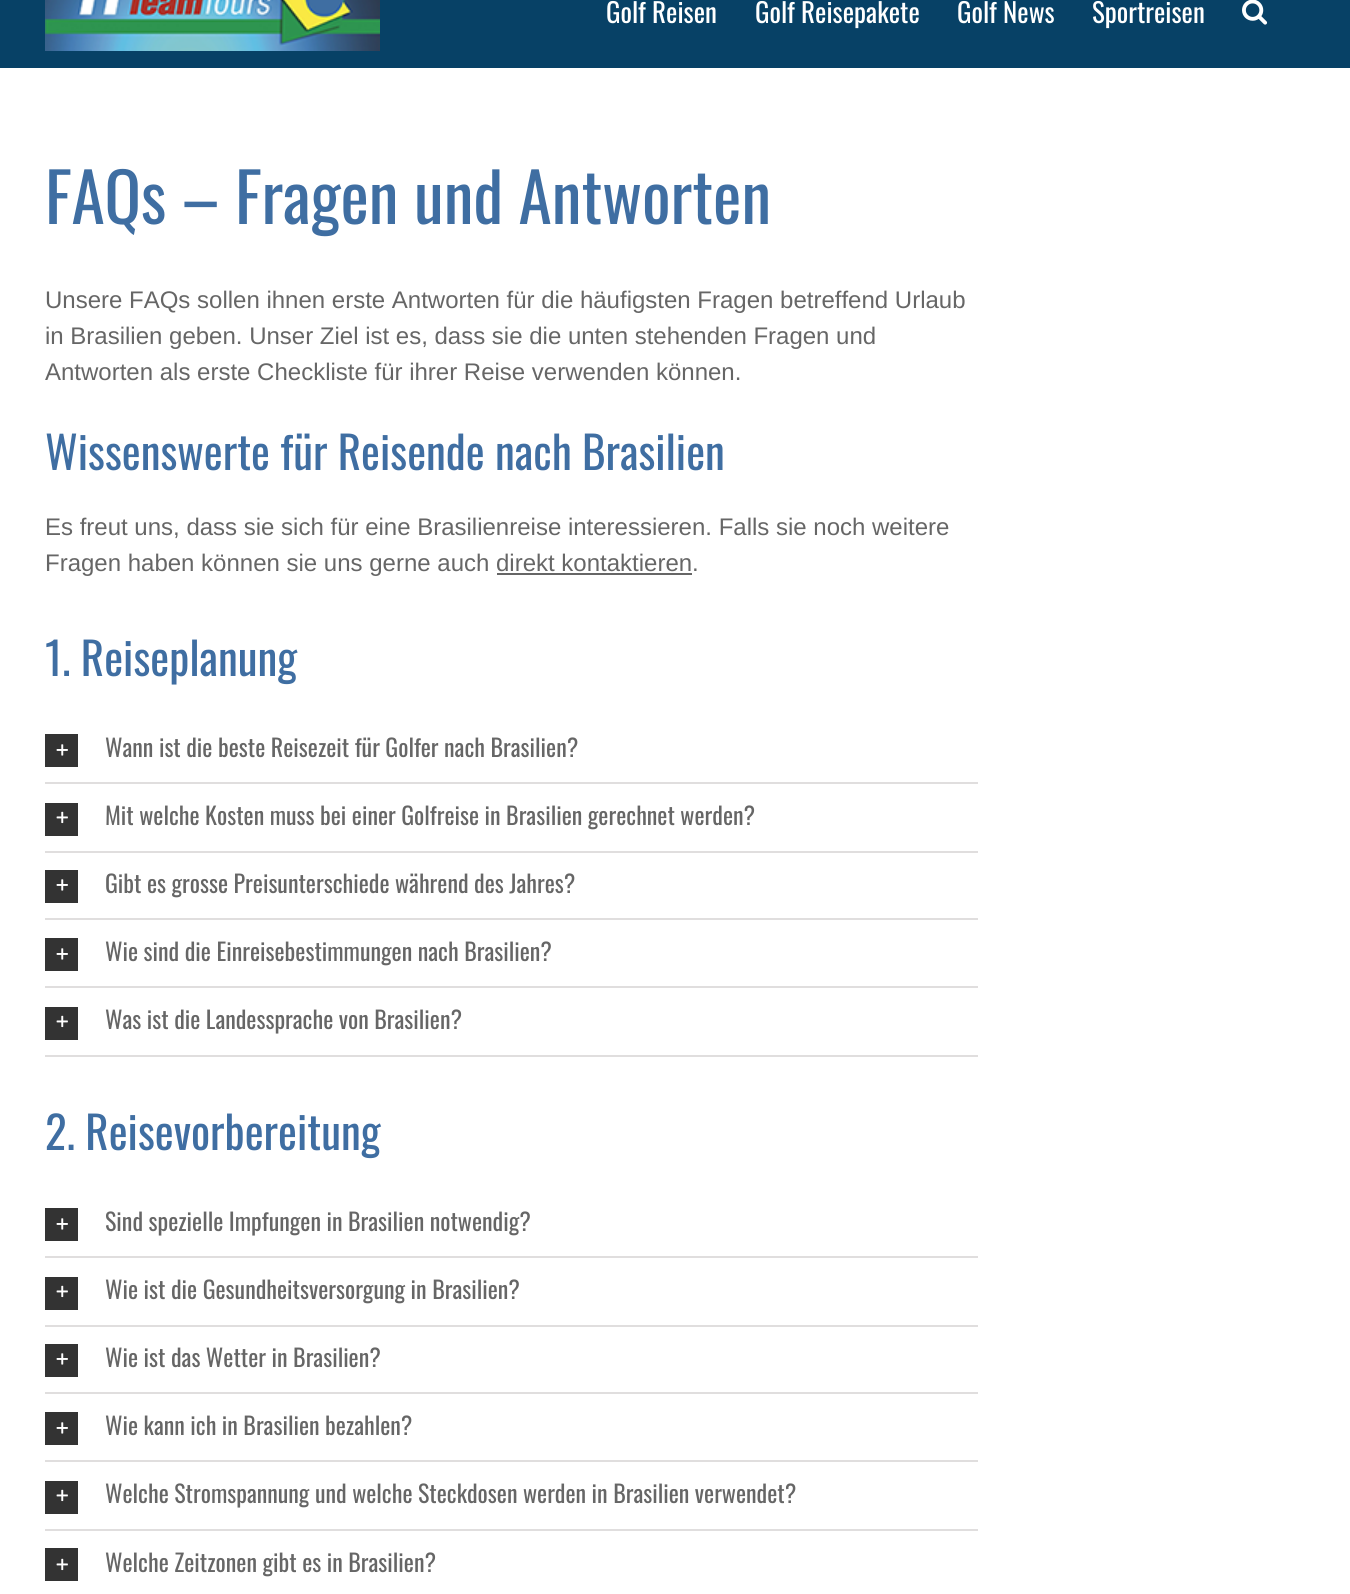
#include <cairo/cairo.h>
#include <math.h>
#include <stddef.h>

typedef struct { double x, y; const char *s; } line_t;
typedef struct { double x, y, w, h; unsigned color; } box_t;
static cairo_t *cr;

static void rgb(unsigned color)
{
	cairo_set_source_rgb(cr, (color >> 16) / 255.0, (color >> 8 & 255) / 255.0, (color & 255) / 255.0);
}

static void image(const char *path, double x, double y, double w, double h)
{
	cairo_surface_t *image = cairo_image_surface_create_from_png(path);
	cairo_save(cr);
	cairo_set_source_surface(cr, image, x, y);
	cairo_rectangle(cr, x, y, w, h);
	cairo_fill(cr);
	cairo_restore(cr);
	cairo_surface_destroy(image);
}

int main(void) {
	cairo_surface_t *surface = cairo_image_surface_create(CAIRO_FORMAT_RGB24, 1350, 1594);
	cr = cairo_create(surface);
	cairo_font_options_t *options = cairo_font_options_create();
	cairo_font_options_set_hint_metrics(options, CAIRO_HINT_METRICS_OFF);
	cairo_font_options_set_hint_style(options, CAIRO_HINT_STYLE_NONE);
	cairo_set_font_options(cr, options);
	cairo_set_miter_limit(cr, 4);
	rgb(0xffffff);
	cairo_paint(cr);
	rgb(0x074166);
	cairo_rectangle(cr, 0, 0, 1350, 68);
	cairo_fill(cr);
	image("img/1.png", 45, 0, 335, 51);
	image("img/2.png", 1242, 0, 26, 25);
	{
		static const box_t items[] = {
			{497, 573, 195, 2, 0x666666},
			{45, 782, 933, 2, 0xe0dede},
			{45, 734, 33, 33, 0x333333},
		};
		for (size_t i = 0; i < sizeof items / sizeof *items; i++) {
			rgb(items[i].color);
			cairo_rectangle(cr, items[i].x, items[i].y, items[i].w, items[i].h);
			cairo_fill(cr);
		}
	}
	image("img/3.png", 56, 744, 12, 12);
	rgb(0xe0dede);
	cairo_rectangle(cr, 45, 851, 933, 2);
	cairo_fill(cr);
	rgb(0x333333);
	cairo_rectangle(cr, 45, 803, 33, 33);
	cairo_fill(cr);
	image("img/4.png", 56, 811, 12, 13);
	rgb(0xe0dede);
	cairo_rectangle(cr, 45, 918, 933, 2);
	cairo_fill(cr);
	rgb(0x333333);
	cairo_rectangle(cr, 45, 870, 33, 33);
	cairo_fill(cr);
	image("img/3.png", 56, 879, 12, 12);
	rgb(0xe0dede);
	cairo_rectangle(cr, 45, 986, 933, 2);
	cairo_fill(cr);
	rgb(0x333333);
	cairo_rectangle(cr, 45, 938, 33, 33);
	cairo_fill(cr);
	image("img/3.png", 56, 948, 12, 12);
	rgb(0xe0dede);
	cairo_rectangle(cr, 45, 1055, 933, 2);
	cairo_fill(cr);
	rgb(0x333333);
	cairo_rectangle(cr, 45, 1007, 33, 33);
	cairo_fill(cr);
	image("img/4.png", 56, 1015, 12, 13);
	rgb(0xe0dede);
	cairo_rectangle(cr, 45, 1256, 933, 2);
	cairo_fill(cr);
	rgb(0x333333);
	cairo_rectangle(cr, 45, 1208, 33, 33);
	cairo_fill(cr);
	image("img/3.png", 56, 1218, 12, 12);
	rgb(0xe0dede);
	cairo_rectangle(cr, 45, 1325, 933, 2);
	cairo_fill(cr);
	rgb(0x333333);
	cairo_rectangle(cr, 45, 1277, 33, 33);
	cairo_fill(cr);
	image("img/4.png", 56, 1285, 12, 13);
	rgb(0xe0dede);
	cairo_rectangle(cr, 45, 1392, 933, 2);
	cairo_fill(cr);
	rgb(0x333333);
	cairo_rectangle(cr, 45, 1344, 33, 33);
	cairo_fill(cr);
	image("img/3.png", 56, 1353, 12, 12);
	rgb(0xe0dede);
	cairo_rectangle(cr, 45, 1460, 933, 2);
	cairo_fill(cr);
	rgb(0x333333);
	cairo_rectangle(cr, 45, 1412, 33, 33);
	cairo_fill(cr);
	image("img/3.png", 56, 1422, 12, 12);
	rgb(0xe0dede);
	cairo_rectangle(cr, 45, 1529, 933, 2);
	cairo_fill(cr);
	rgb(0x333333);
	cairo_rectangle(cr, 45, 1481, 33, 33);
	cairo_fill(cr);
	image("img/4.png", 56, 1489, 12, 13);
	cairo_rectangle(cr, 45, 1548, 33, 33);
	cairo_fill(cr);
	image("img/4.png", 56, 1558, 12, 13);
	cairo_select_font_face(cr, "Oswald", CAIRO_FONT_SLANT_NORMAL, CAIRO_FONT_WEIGHT_NORMAL);
	cairo_set_font_size(cr, 27);
	rgb(0xffffff);
	{
		static const line_t items[] = {
			{606, 23, "Golf Reisen"},
			{755, 23, "Golf Reisepakete"},
			{957, 23, "Golf News"},
			{1092, 23, "Sportreisen"},
		};
		for (size_t i = 0; i < sizeof items / sizeof *items; i++) {
			cairo_move_to(cr, items[i].x, items[i].y);
			cairo_show_text(cr, items[i].s);
		}
	}
	cairo_set_font_size(cr, 67.5);
	rgb(0x3f6ea2);
	cairo_move_to(cr, 45, 224);
	cairo_show_text(cr, "FAQs – Fragen und Antworten");
	cairo_select_font_face(cr, "Liberation Sans", CAIRO_FONT_SLANT_NORMAL, CAIRO_FONT_WEIGHT_NORMAL);
	cairo_set_font_size(cr, 24);
	rgb(0x666666);
	{
		static const line_t items[] = {
			{45, 308, "Unsere FAQs sollen ihnen erste Antworten für die häufigsten Fragen betreffend Urlaub"},
			{45, 344, "in Brasilien geben. Unser Ziel ist es, dass sie die unten stehenden Fragen und"},
			{45, 380, "Antworten als erste Checkliste für ihrer Reise verwenden können."},
		};
		for (size_t i = 0; i < sizeof items / sizeof *items; i++) {
			cairo_move_to(cr, items[i].x, items[i].y);
			cairo_show_text(cr, items[i].s);
		}
	}
	cairo_select_font_face(cr, "Oswald", CAIRO_FONT_SLANT_NORMAL, CAIRO_FONT_WEIGHT_NORMAL);
	cairo_set_font_size(cr, 45);
	rgb(0x3f6ea2);
	cairo_move_to(cr, 45, 470);
	cairo_show_text(cr, "Wissenswerte für Reisende nach Brasilien");
	cairo_select_font_face(cr, "Liberation Sans", CAIRO_FONT_SLANT_NORMAL, CAIRO_FONT_WEIGHT_NORMAL);
	cairo_set_font_size(cr, 24);
	rgb(0x666666);
	cairo_move_to(cr, 45, 535);
	cairo_show_text(cr, "Es freut uns, dass sie sich für eine Brasilienreise interessieren. Falls sie noch weitere");
	cairo_move_to(cr, 45, 571);
	cairo_show_text(cr, "Fragen haben können sie uns gerne auch direkt kontaktieren.");
	cairo_select_font_face(cr, "Oswald", CAIRO_FONT_SLANT_NORMAL, CAIRO_FONT_WEIGHT_NORMAL);
	cairo_set_font_size(cr, 45);
	rgb(0x3f6ea2);
	cairo_move_to(cr, 45, 676);
	cairo_show_text(cr, "1. Reiseplanung");
	cairo_set_font_size(cr, 24);
	rgb(0x666666);
	{
		static const line_t items[] = {
			{105, 757, "Wann ist die beste Reisezeit für Golfer nach Brasilien?"},
			{105, 825, "Mit welche Kosten muss bei einer Golfreise in Brasilien gerechnet werden?"},
			{105, 893, "Gibt es grosse Preisunterschiede während des Jahres?"},
			{105, 961, "Wie sind die Einreisebestimmungen nach Brasilien?"},
			{105, 1029, "Was ist die Landessprache von Brasilien?"},
		};
		for (size_t i = 0; i < sizeof items / sizeof *items; i++) {
			cairo_move_to(cr, items[i].x, items[i].y);
			cairo_show_text(cr, items[i].s);
		}
	}
	cairo_set_font_size(cr, 45);
	rgb(0x3f6ea2);
	cairo_move_to(cr, 45, 1150);
	cairo_show_text(cr, "2. Reisevorbereitung");
	cairo_set_font_size(cr, 24);
	rgb(0x666666);
	{
		static const line_t items[] = {
			{105, 1231, "Sind spezielle Impfungen in Brasilien notwendig?"},
			{105, 1299, "Wie ist die Gesundheitsversorgung in Brasilien?"},
			{105, 1367, "Wie ist das Wetter in Brasilien?"},
			{105, 1435, "Wie kann ich in Brasilien bezahlen?"},
			{105, 1503, "Welche Stromspannung und welche Steckdosen werden in Brasilien verwendet?"},
			{105, 1572, "Welche Zeitzonen gibt es in Brasilien?"},
		};
		for (size_t i = 0; i < sizeof items / sizeof *items; i++) {
			cairo_move_to(cr, items[i].x, items[i].y);
			cairo_show_text(cr, items[i].s);
		}
	}
	cairo_surface_write_to_png(surface, "page.png");
	cairo_font_options_destroy(options);
	cairo_destroy(cr);
	cairo_surface_destroy(surface);
	return 0;
}
